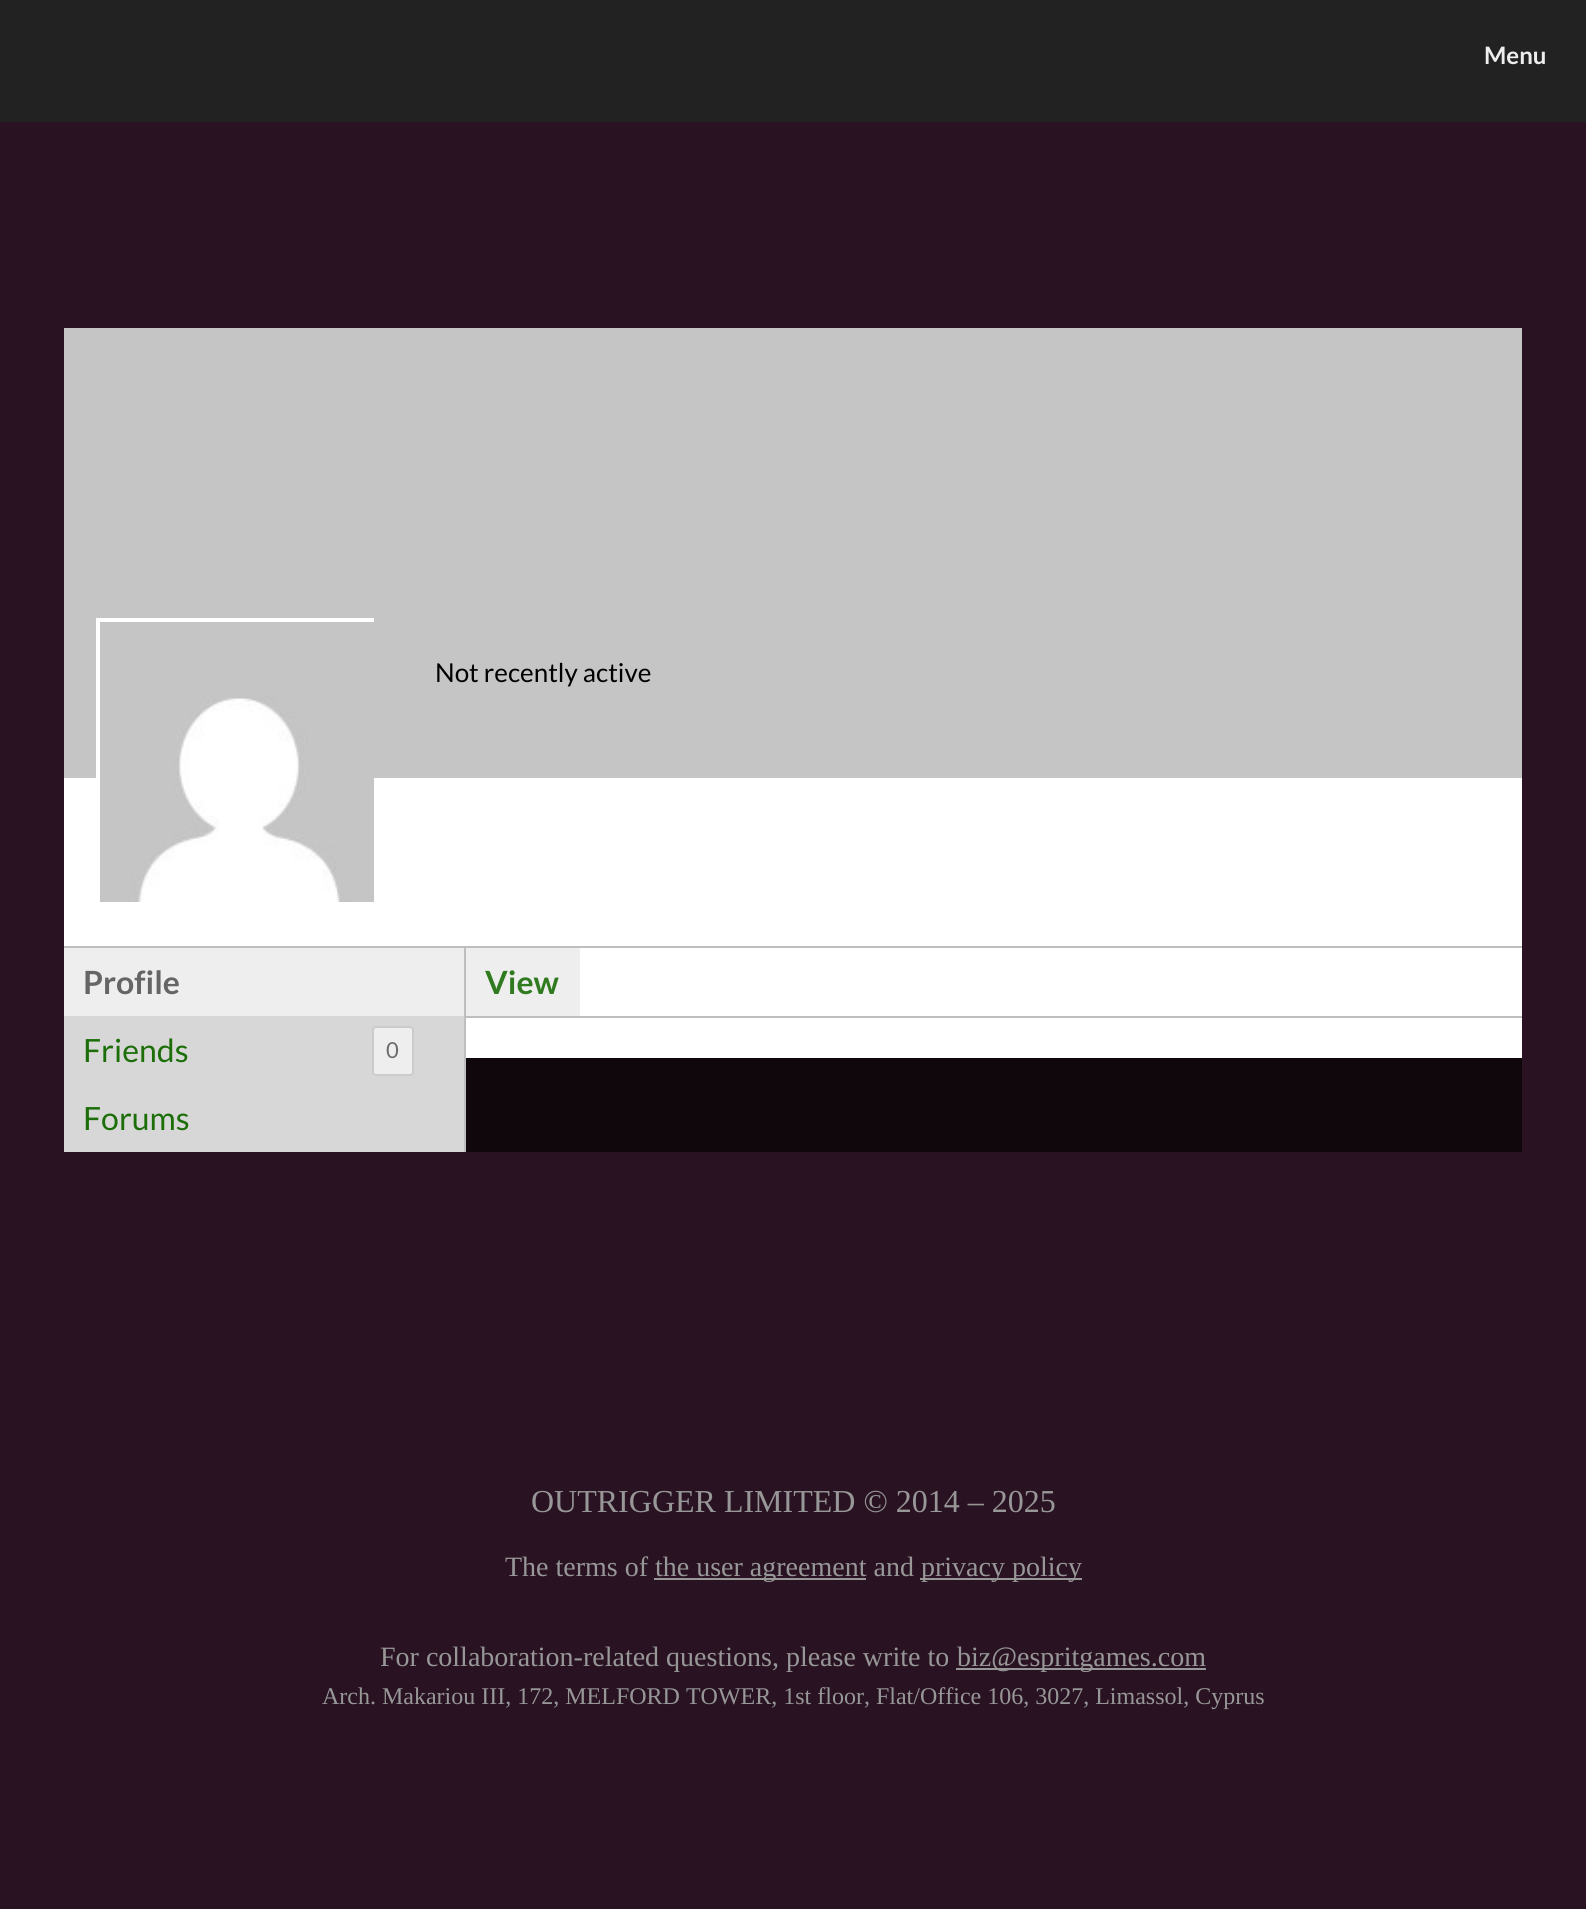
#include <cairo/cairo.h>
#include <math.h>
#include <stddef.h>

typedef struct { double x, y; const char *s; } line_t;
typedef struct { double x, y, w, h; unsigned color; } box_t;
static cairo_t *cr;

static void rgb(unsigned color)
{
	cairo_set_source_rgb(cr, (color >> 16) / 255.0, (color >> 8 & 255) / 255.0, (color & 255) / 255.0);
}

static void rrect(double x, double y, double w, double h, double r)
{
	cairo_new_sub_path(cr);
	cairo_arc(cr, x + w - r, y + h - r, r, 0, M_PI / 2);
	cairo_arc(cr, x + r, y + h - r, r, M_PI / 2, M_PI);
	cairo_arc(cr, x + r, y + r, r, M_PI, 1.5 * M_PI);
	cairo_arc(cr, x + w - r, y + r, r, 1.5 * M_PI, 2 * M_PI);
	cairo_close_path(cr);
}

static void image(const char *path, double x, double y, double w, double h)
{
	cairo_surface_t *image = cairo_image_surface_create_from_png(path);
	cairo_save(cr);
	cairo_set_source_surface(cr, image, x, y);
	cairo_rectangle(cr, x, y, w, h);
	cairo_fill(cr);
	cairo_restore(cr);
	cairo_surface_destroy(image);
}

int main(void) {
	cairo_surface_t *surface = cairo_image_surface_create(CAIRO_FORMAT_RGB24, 1586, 1909);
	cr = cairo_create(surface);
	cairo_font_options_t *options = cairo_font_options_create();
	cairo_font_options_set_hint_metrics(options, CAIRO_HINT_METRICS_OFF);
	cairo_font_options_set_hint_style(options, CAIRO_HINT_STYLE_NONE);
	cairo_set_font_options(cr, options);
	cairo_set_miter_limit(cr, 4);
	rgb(0x291222);
	cairo_paint(cr);
	{
		static const box_t items[] = {
			{0, 0, 1586, 122, 0x222222},
			{466, 1058, 1056, 94, 0x10070d},
			{64, 778, 1458, 168, 0xffffff},
			{64, 328, 1458, 450, 0xc5c5c5},
		};
		for (size_t i = 0; i < sizeof items / sizeof *items; i++) {
			rgb(items[i].color);
			cairo_rectangle(cr, items[i].x, items[i].y, items[i].w, items[i].h);
			cairo_fill(cr);
		}
	}
	cairo_save(cr);
	cairo_rectangle(cr, 96, 618, 278, 308);
	cairo_clip(cr);
	cairo_rectangle(cr, 98, 620, 282, 284);
	rgb(0xffffff);
	cairo_set_line_width(cr, 4);
	cairo_stroke(cr);
	cairo_restore(cr);
	image("img/1.png", 100, 622, 274, 280);
	{
		static const box_t items[] = {
			{64, 1016, 400, 136, 0xd8d7d7},
			{464, 946, 2, 206, 0xbebebe},
			{64, 946, 400, 2, 0xbebebe},
			{64, 948, 400, 68, 0xeeeeee},
		};
		for (size_t i = 0; i < sizeof items / sizeof *items; i++) {
			rgb(items[i].color);
			cairo_rectangle(cr, items[i].x, items[i].y, items[i].w, items[i].h);
			cairo_fill(cr);
		}
	}
	rrect(373, 1027, 40, 48, 3);
	cairo_fill_preserve(cr);
	rgb(0xcccccc);
	cairo_stroke(cr);
	{
		static const box_t items[] = {
			{466, 948, 1056, 110, 0xffffff},
			{466, 946, 1056, 2, 0xbebebe},
			{466, 1016, 1056, 2, 0xbebebe},
			{466, 948, 114, 68, 0xeeeeee},
			{654, 1578, 212, 2, 0x979797},
			{920, 1578, 162, 2, 0x979797},
			{956, 1668, 250, 2, 0x979797},
		};
		for (size_t i = 0; i < sizeof items / sizeof *items; i++) {
			rgb(items[i].color);
			cairo_rectangle(cr, items[i].x, items[i].y, items[i].w, items[i].h);
			cairo_fill(cr);
		}
	}
	cairo_select_font_face(cr, "Lato", CAIRO_FONT_SLANT_NORMAL, CAIRO_FONT_WEIGHT_BOLD);
	cairo_set_font_size(cr, 24);
	rgb(0xeeeeee);
	cairo_move_to(cr, 1484, 64);
	cairo_show_text(cr, "Menu");
	cairo_select_font_face(cr, "Lato", CAIRO_FONT_SLANT_NORMAL, CAIRO_FONT_WEIGHT_NORMAL);
	cairo_set_font_size(cr, 26);
	rgb(0x000000);
	cairo_move_to(cr, 435, 682);
	cairo_show_text(cr, "Not recently active");
	cairo_select_font_face(cr, "Lato", CAIRO_FONT_SLANT_NORMAL, CAIRO_FONT_WEIGHT_BOLD);
	cairo_set_font_size(cr, 32);
	rgb(0x656565);
	cairo_move_to(cr, 83, 994);
	cairo_show_text(cr, "Profile");
	cairo_select_font_face(cr, "Lato", CAIRO_FONT_SLANT_NORMAL, CAIRO_FONT_WEIGHT_NORMAL);
	rgb(0x1b6e08);
	cairo_move_to(cr, 83, 1062);
	cairo_show_text(cr, "Friends");
	cairo_set_font_size(cr, 22);
	rgb(0x6c6c6c);
	cairo_move_to(cr, 386, 1058);
	cairo_show_text(cr, "0");
	cairo_set_font_size(cr, 32);
	rgb(0x1b6e08);
	cairo_move_to(cr, 83, 1130);
	cairo_show_text(cr, "Forums");
	cairo_select_font_face(cr, "Lato", CAIRO_FONT_SLANT_NORMAL, CAIRO_FONT_WEIGHT_BOLD);
	rgb(0x307b1f);
	cairo_move_to(cr, 485, 994);
	cairo_show_text(cr, "View");
	cairo_select_font_face(cr, "Liberation Serif", CAIRO_FONT_SLANT_NORMAL, CAIRO_FONT_WEIGHT_NORMAL);
	rgb(0x979797);
	cairo_move_to(cr, 531, 1512);
	cairo_show_text(cr, "OUTRIGGER LIMITED © 2014 – 2025");
	cairo_set_font_size(cr, 28);
	{
		static const line_t items[] = {
			{505, 1576, "The terms of"},
			{655, 1576, "the user agreement and"},
			{921, 1576, "privacy policy"},
			{380, 1666, "For collaboration-related questions, please write to"},
			{957, 1666, "biz@espritgames.com"},
		};
		for (size_t i = 0; i < sizeof items / sizeof *items; i++) {
			cairo_move_to(cr, items[i].x, items[i].y);
			cairo_show_text(cr, items[i].s);
		}
	}
	cairo_set_font_size(cr, 24);
	cairo_move_to(cr, 322, 1704);
	cairo_show_text(cr, "Arch. Makariou III, 172, MELFORD TOWER, 1st floor, Flat/Office 106, 3027, Limassol, Cyprus");
	cairo_surface_write_to_png(surface, "page.png");
	cairo_font_options_destroy(options);
	cairo_destroy(cr);
	cairo_surface_destroy(surface);
	return 0;
}
